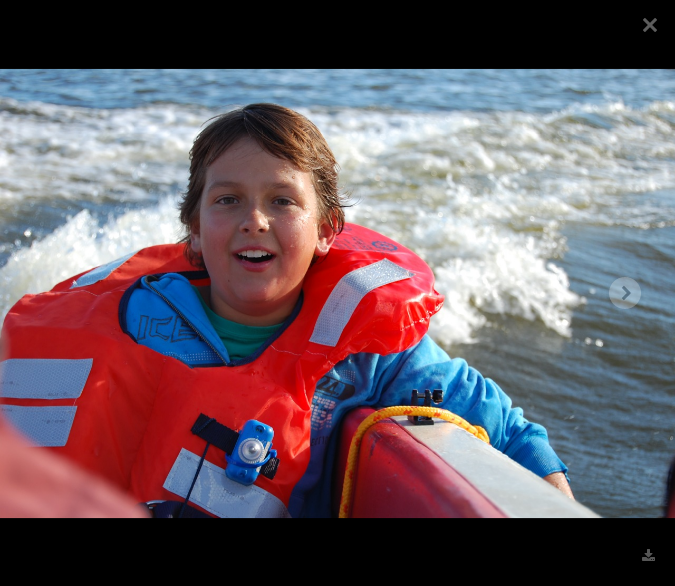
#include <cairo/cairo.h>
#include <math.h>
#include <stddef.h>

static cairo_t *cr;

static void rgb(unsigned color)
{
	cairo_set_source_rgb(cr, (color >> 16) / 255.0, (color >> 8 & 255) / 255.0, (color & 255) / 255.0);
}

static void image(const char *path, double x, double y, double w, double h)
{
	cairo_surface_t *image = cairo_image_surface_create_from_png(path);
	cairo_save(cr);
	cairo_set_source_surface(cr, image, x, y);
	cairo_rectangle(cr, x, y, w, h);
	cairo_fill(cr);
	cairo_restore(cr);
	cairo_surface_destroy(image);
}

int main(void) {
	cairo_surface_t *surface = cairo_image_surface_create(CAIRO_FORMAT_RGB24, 675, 586);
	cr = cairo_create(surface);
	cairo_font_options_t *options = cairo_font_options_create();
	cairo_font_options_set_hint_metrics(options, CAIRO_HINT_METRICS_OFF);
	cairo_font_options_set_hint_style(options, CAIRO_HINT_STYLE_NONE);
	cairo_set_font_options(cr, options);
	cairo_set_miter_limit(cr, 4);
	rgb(0x000000);
	cairo_paint(cr);
	image("img/1.png", 0, 68, 675, 451);
	image("img/2.png", 643, 18, 14, 14);
	image("img/3.png", 606, 277, 38, 32);
	image("img/4.png", 642, 549, 13, 12);
	cairo_surface_write_to_png(surface, "page.png");
	cairo_font_options_destroy(options);
	cairo_destroy(cr);
	cairo_surface_destroy(surface);
	return 0;
}
